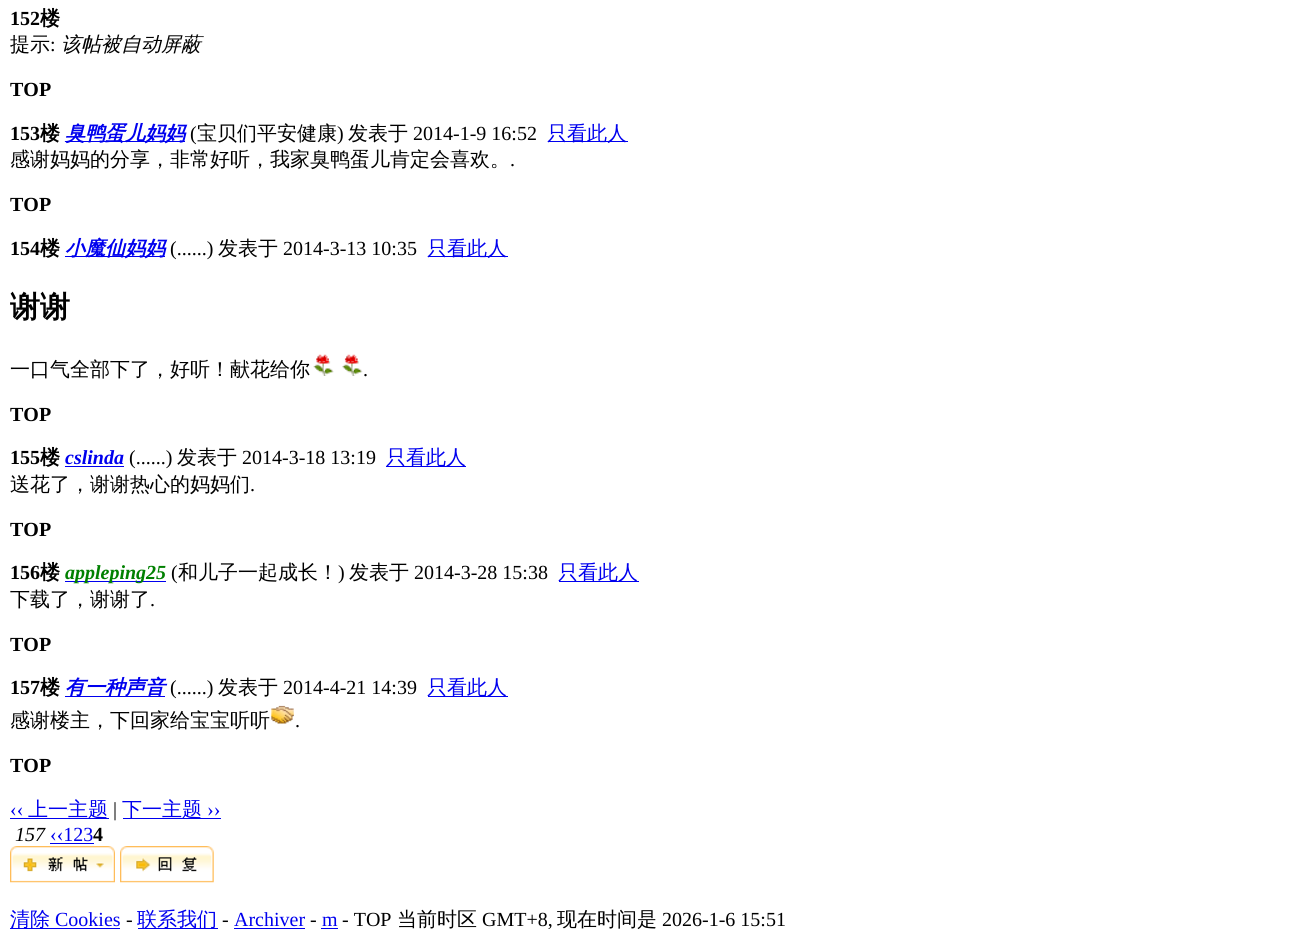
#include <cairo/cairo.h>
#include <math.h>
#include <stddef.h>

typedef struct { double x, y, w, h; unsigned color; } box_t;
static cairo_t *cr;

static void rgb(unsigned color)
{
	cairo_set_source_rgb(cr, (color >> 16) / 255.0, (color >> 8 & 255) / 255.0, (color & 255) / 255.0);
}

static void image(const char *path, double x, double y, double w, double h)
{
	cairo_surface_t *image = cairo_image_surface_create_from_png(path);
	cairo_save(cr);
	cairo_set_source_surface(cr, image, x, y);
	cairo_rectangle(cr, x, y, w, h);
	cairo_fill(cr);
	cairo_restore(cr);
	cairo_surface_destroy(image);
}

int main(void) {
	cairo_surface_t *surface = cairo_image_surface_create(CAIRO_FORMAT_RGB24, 1309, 932);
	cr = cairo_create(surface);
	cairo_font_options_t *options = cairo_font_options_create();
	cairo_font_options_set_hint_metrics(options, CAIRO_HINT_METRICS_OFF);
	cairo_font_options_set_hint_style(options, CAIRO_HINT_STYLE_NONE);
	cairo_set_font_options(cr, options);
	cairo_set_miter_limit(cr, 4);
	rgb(0xffffff);
	cairo_paint(cr);
	{
		static const box_t items[] = {
			{65, 141, 120, 1, 0x0000ee},
			{548, 141, 80, 1, 0x0000ee},
			{65, 256, 100, 1, 0x0000ee},
			{428, 256, 80, 1, 0x0000ee},
		};
		for (size_t i = 0; i < sizeof items / sizeof *items; i++) {
			rgb(items[i].color);
			cairo_rectangle(cr, items[i].x, items[i].y, items[i].w, items[i].h);
			cairo_fill(cr);
		}
	}
	image("img/1.png", 313, 354, 21, 22);
	image("img/2.png", 342, 354, 21, 22);
	{
		static const box_t items[] = {
			{65, 466, 59, 1, 0x0000ee},
			{386, 466, 80, 1, 0x0000ee},
			{65, 581, 101, 1, 0x0000ee},
			{559, 581, 80, 1, 0x0000ee},
			{65, 696, 100, 1, 0x0000ee},
			{428, 696, 80, 1, 0x0000ee},
		};
		for (size_t i = 0; i < sizeof items / sizeof *items; i++) {
			rgb(items[i].color);
			cairo_rectangle(cr, items[i].x, items[i].y, items[i].w, items[i].h);
			cairo_fill(cr);
		}
	}
	image("img/3.png", 271, 705, 23, 19);
	{
		static const box_t items[] = {
			{10, 818, 99, 1, 0x0000ee},
			{123, 818, 98, 1, 0x0000ee},
			{50, 843, 44, 1, 0x0000ee},
		};
		for (size_t i = 0; i < sizeof items / sizeof *items; i++) {
			rgb(items[i].color);
			cairo_rectangle(cr, items[i].x, items[i].y, items[i].w, items[i].h);
			cairo_fill(cr);
		}
	}
	image("img/4.png", 10, 846, 105, 37);
	image("img/5.png", 120, 846, 94, 37);
	{
		static const box_t items[] = {
			{10, 928, 110, 1, 0x0000ee},
			{138, 928, 80, 1, 0x0000ee},
			{234, 928, 71, 1, 0x0000ee},
			{321, 928, 17, 1, 0x0000ee},
		};
		for (size_t i = 0; i < sizeof items / sizeof *items; i++) {
			rgb(items[i].color);
			cairo_rectangle(cr, items[i].x, items[i].y, items[i].w, items[i].h);
			cairo_fill(cr);
		}
	}
	cairo_select_font_face(cr, "Liberation Serif", CAIRO_FONT_SLANT_NORMAL, CAIRO_FONT_WEIGHT_BOLD);
	cairo_set_font_size(cr, 20);
	rgb(0x000000);
	cairo_move_to(cr, 10, 25);
	cairo_show_text(cr, "152");
	cairo_select_font_face(cr, "WenQuanYi Zen Hei", CAIRO_FONT_SLANT_NORMAL, CAIRO_FONT_WEIGHT_BOLD);
	cairo_move_to(cr, 40, 25);
	cairo_show_text(cr, "楼");
	cairo_select_font_face(cr, "WenQuanYi Zen Hei Medium", CAIRO_FONT_SLANT_NORMAL, CAIRO_FONT_WEIGHT_NORMAL);
	cairo_move_to(cr, 10, 51);
	cairo_show_text(cr, "提示");
	cairo_select_font_face(cr, "Liberation Serif", CAIRO_FONT_SLANT_NORMAL, CAIRO_FONT_WEIGHT_NORMAL);
	cairo_move_to(cr, 50, 51);
	cairo_show_text(cr, ":");
	cairo_select_font_face(cr, "WenQuanYi Zen Hei Medium", CAIRO_FONT_SLANT_ITALIC, CAIRO_FONT_WEIGHT_NORMAL);
	cairo_move_to(cr, 61, 51);
	cairo_show_text(cr, "该帖被自动屏蔽");
	cairo_select_font_face(cr, "Liberation Serif", CAIRO_FONT_SLANT_NORMAL, CAIRO_FONT_WEIGHT_BOLD);
	cairo_move_to(cr, 10, 96);
	cairo_show_text(cr, "TOP");
	cairo_move_to(cr, 10, 140);
	cairo_show_text(cr, "153");
	cairo_select_font_face(cr, "WenQuanYi Zen Hei", CAIRO_FONT_SLANT_NORMAL, CAIRO_FONT_WEIGHT_BOLD);
	cairo_move_to(cr, 40, 140);
	cairo_show_text(cr, "楼");
	cairo_select_font_face(cr, "WenQuanYi Zen Hei", CAIRO_FONT_SLANT_ITALIC, CAIRO_FONT_WEIGHT_BOLD);
	rgb(0x0000ee);
	cairo_move_to(cr, 65, 140);
	cairo_show_text(cr, "臭鸭蛋儿妈妈");
	cairo_select_font_face(cr, "Liberation Serif", CAIRO_FONT_SLANT_NORMAL, CAIRO_FONT_WEIGHT_NORMAL);
	rgb(0x000000);
	cairo_move_to(cr, 190, 140);
	cairo_show_text(cr, "(");
	cairo_select_font_face(cr, "WenQuanYi Zen Hei Medium", CAIRO_FONT_SLANT_NORMAL, CAIRO_FONT_WEIGHT_NORMAL);
	cairo_move_to(cr, 197, 140);
	cairo_show_text(cr, "宝贝们平安健康");
	cairo_select_font_face(cr, "Liberation Serif", CAIRO_FONT_SLANT_NORMAL, CAIRO_FONT_WEIGHT_NORMAL);
	cairo_move_to(cr, 337, 140);
	cairo_show_text(cr, ")");
	cairo_select_font_face(cr, "WenQuanYi Zen Hei Medium", CAIRO_FONT_SLANT_NORMAL, CAIRO_FONT_WEIGHT_NORMAL);
	cairo_move_to(cr, 348, 140);
	cairo_show_text(cr, "发表于");
	cairo_select_font_face(cr, "Liberation Serif", CAIRO_FONT_SLANT_NORMAL, CAIRO_FONT_WEIGHT_NORMAL);
	cairo_move_to(cr, 413, 140);
	cairo_show_text(cr, "2014-1-9 16:52");
	cairo_select_font_face(cr, "WenQuanYi Zen Hei Medium", CAIRO_FONT_SLANT_NORMAL, CAIRO_FONT_WEIGHT_NORMAL);
	rgb(0x0000ee);
	cairo_move_to(cr, 547, 140);
	cairo_show_text(cr, "只看此人");
	rgb(0x000000);
	cairo_move_to(cr, 10, 166);
	cairo_show_text(cr, "感谢妈妈的分享，非常好听，我家臭鸭蛋儿肯定会喜欢。");
	cairo_select_font_face(cr, "Liberation Serif", CAIRO_FONT_SLANT_NORMAL, CAIRO_FONT_WEIGHT_NORMAL);
	cairo_move_to(cr, 510, 166);
	cairo_show_text(cr, ".");
	cairo_select_font_face(cr, "Liberation Serif", CAIRO_FONT_SLANT_NORMAL, CAIRO_FONT_WEIGHT_BOLD);
	cairo_move_to(cr, 10, 211);
	cairo_show_text(cr, "TOP");
	cairo_move_to(cr, 10, 255);
	cairo_show_text(cr, "154");
	cairo_select_font_face(cr, "WenQuanYi Zen Hei", CAIRO_FONT_SLANT_NORMAL, CAIRO_FONT_WEIGHT_BOLD);
	cairo_move_to(cr, 40, 255);
	cairo_show_text(cr, "楼");
	cairo_select_font_face(cr, "WenQuanYi Zen Hei", CAIRO_FONT_SLANT_ITALIC, CAIRO_FONT_WEIGHT_BOLD);
	rgb(0x0000ee);
	cairo_move_to(cr, 65, 255);
	cairo_show_text(cr, "小魔仙妈妈");
	cairo_select_font_face(cr, "Liberation Serif", CAIRO_FONT_SLANT_NORMAL, CAIRO_FONT_WEIGHT_NORMAL);
	rgb(0x000000);
	cairo_move_to(cr, 170, 255);
	cairo_show_text(cr, "(......)");
	cairo_select_font_face(cr, "WenQuanYi Zen Hei Medium", CAIRO_FONT_SLANT_NORMAL, CAIRO_FONT_WEIGHT_NORMAL);
	cairo_move_to(cr, 218, 255);
	cairo_show_text(cr, "发表于");
	cairo_select_font_face(cr, "Liberation Serif", CAIRO_FONT_SLANT_NORMAL, CAIRO_FONT_WEIGHT_NORMAL);
	cairo_move_to(cr, 283, 255);
	cairo_show_text(cr, "2014-3-13 10:35");
	cairo_select_font_face(cr, "WenQuanYi Zen Hei Medium", CAIRO_FONT_SLANT_NORMAL, CAIRO_FONT_WEIGHT_NORMAL);
	rgb(0x0000ee);
	cairo_move_to(cr, 427, 255);
	cairo_show_text(cr, "只看此人");
	cairo_select_font_face(cr, "WenQuanYi Zen Hei", CAIRO_FONT_SLANT_NORMAL, CAIRO_FONT_WEIGHT_BOLD);
	cairo_set_font_size(cr, 30);
	rgb(0x000000);
	cairo_move_to(cr, 10, 317);
	cairo_show_text(cr, "谢谢");
	cairo_select_font_face(cr, "WenQuanYi Zen Hei Medium", CAIRO_FONT_SLANT_NORMAL, CAIRO_FONT_WEIGHT_NORMAL);
	cairo_set_font_size(cr, 20);
	cairo_move_to(cr, 10, 376);
	cairo_show_text(cr, "一口气全部下了，好听！献花给你");
	cairo_select_font_face(cr, "Liberation Serif", CAIRO_FONT_SLANT_NORMAL, CAIRO_FONT_WEIGHT_NORMAL);
	cairo_move_to(cr, 363, 376);
	cairo_show_text(cr, ".");
	cairo_select_font_face(cr, "Liberation Serif", CAIRO_FONT_SLANT_NORMAL, CAIRO_FONT_WEIGHT_BOLD);
	cairo_move_to(cr, 10, 421);
	cairo_show_text(cr, "TOP");
	cairo_move_to(cr, 10, 464);
	cairo_show_text(cr, "155");
	cairo_select_font_face(cr, "WenQuanYi Zen Hei", CAIRO_FONT_SLANT_NORMAL, CAIRO_FONT_WEIGHT_BOLD);
	cairo_move_to(cr, 40, 464);
	cairo_show_text(cr, "楼");
	cairo_select_font_face(cr, "Liberation Serif", CAIRO_FONT_SLANT_ITALIC, CAIRO_FONT_WEIGHT_BOLD);
	rgb(0x0000ee);
	cairo_move_to(cr, 65, 464);
	cairo_show_text(cr, "cslinda");
	cairo_select_font_face(cr, "Liberation Serif", CAIRO_FONT_SLANT_NORMAL, CAIRO_FONT_WEIGHT_NORMAL);
	rgb(0x000000);
	cairo_move_to(cr, 129, 464);
	cairo_show_text(cr, "(......)");
	cairo_select_font_face(cr, "WenQuanYi Zen Hei Medium", CAIRO_FONT_SLANT_NORMAL, CAIRO_FONT_WEIGHT_NORMAL);
	cairo_move_to(cr, 177, 464);
	cairo_show_text(cr, "发表于");
	cairo_select_font_face(cr, "Liberation Serif", CAIRO_FONT_SLANT_NORMAL, CAIRO_FONT_WEIGHT_NORMAL);
	cairo_move_to(cr, 242, 464);
	cairo_show_text(cr, "2014-3-18 13:19");
	cairo_select_font_face(cr, "WenQuanYi Zen Hei Medium", CAIRO_FONT_SLANT_NORMAL, CAIRO_FONT_WEIGHT_NORMAL);
	rgb(0x0000ee);
	cairo_move_to(cr, 386, 464);
	cairo_show_text(cr, "只看此人");
	rgb(0x000000);
	cairo_move_to(cr, 10, 491);
	cairo_show_text(cr, "送花了，谢谢热心的妈妈们");
	cairo_select_font_face(cr, "Liberation Serif", CAIRO_FONT_SLANT_NORMAL, CAIRO_FONT_WEIGHT_NORMAL);
	cairo_move_to(cr, 250, 491);
	cairo_show_text(cr, ".");
	cairo_select_font_face(cr, "Liberation Serif", CAIRO_FONT_SLANT_NORMAL, CAIRO_FONT_WEIGHT_BOLD);
	cairo_move_to(cr, 10, 536);
	cairo_show_text(cr, "TOP");
	cairo_move_to(cr, 10, 579);
	cairo_show_text(cr, "156");
	cairo_select_font_face(cr, "WenQuanYi Zen Hei", CAIRO_FONT_SLANT_NORMAL, CAIRO_FONT_WEIGHT_BOLD);
	cairo_move_to(cr, 40, 579);
	cairo_show_text(cr, "楼");
	cairo_select_font_face(cr, "Liberation Serif", CAIRO_FONT_SLANT_ITALIC, CAIRO_FONT_WEIGHT_BOLD);
	rgb(0x008000);
	cairo_move_to(cr, 65, 579);
	cairo_show_text(cr, "appleping25");
	cairo_select_font_face(cr, "Liberation Serif", CAIRO_FONT_SLANT_NORMAL, CAIRO_FONT_WEIGHT_NORMAL);
	rgb(0x000000);
	cairo_move_to(cr, 171, 579);
	cairo_show_text(cr, "(");
	cairo_select_font_face(cr, "WenQuanYi Zen Hei Medium", CAIRO_FONT_SLANT_NORMAL, CAIRO_FONT_WEIGHT_NORMAL);
	cairo_move_to(cr, 178, 579);
	cairo_show_text(cr, "和儿子一起成长！");
	cairo_select_font_face(cr, "Liberation Serif", CAIRO_FONT_SLANT_NORMAL, CAIRO_FONT_WEIGHT_NORMAL);
	cairo_move_to(cr, 338, 579);
	cairo_show_text(cr, ")");
	cairo_select_font_face(cr, "WenQuanYi Zen Hei Medium", CAIRO_FONT_SLANT_NORMAL, CAIRO_FONT_WEIGHT_NORMAL);
	cairo_move_to(cr, 349, 579);
	cairo_show_text(cr, "发表于");
	cairo_select_font_face(cr, "Liberation Serif", CAIRO_FONT_SLANT_NORMAL, CAIRO_FONT_WEIGHT_NORMAL);
	cairo_move_to(cr, 414, 579);
	cairo_show_text(cr, "2014-3-28 15:38");
	cairo_select_font_face(cr, "WenQuanYi Zen Hei Medium", CAIRO_FONT_SLANT_NORMAL, CAIRO_FONT_WEIGHT_NORMAL);
	rgb(0x0000ee);
	cairo_move_to(cr, 558, 579);
	cairo_show_text(cr, "只看此人");
	rgb(0x000000);
	cairo_move_to(cr, 10, 606);
	cairo_show_text(cr, "下载了，谢谢了");
	cairo_select_font_face(cr, "Liberation Serif", CAIRO_FONT_SLANT_NORMAL, CAIRO_FONT_WEIGHT_NORMAL);
	cairo_move_to(cr, 150, 606);
	cairo_show_text(cr, ".");
	cairo_select_font_face(cr, "Liberation Serif", CAIRO_FONT_SLANT_NORMAL, CAIRO_FONT_WEIGHT_BOLD);
	cairo_move_to(cr, 10, 651);
	cairo_show_text(cr, "TOP");
	cairo_move_to(cr, 10, 694);
	cairo_show_text(cr, "157");
	cairo_select_font_face(cr, "WenQuanYi Zen Hei", CAIRO_FONT_SLANT_NORMAL, CAIRO_FONT_WEIGHT_BOLD);
	cairo_move_to(cr, 40, 694);
	cairo_show_text(cr, "楼");
	cairo_select_font_face(cr, "WenQuanYi Zen Hei", CAIRO_FONT_SLANT_ITALIC, CAIRO_FONT_WEIGHT_BOLD);
	rgb(0x0000ee);
	cairo_move_to(cr, 65, 694);
	cairo_show_text(cr, "有一种声音");
	cairo_select_font_face(cr, "Liberation Serif", CAIRO_FONT_SLANT_NORMAL, CAIRO_FONT_WEIGHT_NORMAL);
	rgb(0x000000);
	cairo_move_to(cr, 170, 694);
	cairo_show_text(cr, "(......)");
	cairo_select_font_face(cr, "WenQuanYi Zen Hei Medium", CAIRO_FONT_SLANT_NORMAL, CAIRO_FONT_WEIGHT_NORMAL);
	cairo_move_to(cr, 218, 694);
	cairo_show_text(cr, "发表于");
	cairo_select_font_face(cr, "Liberation Serif", CAIRO_FONT_SLANT_NORMAL, CAIRO_FONT_WEIGHT_NORMAL);
	cairo_move_to(cr, 283, 694);
	cairo_show_text(cr, "2014-4-21 14:39");
	cairo_select_font_face(cr, "WenQuanYi Zen Hei Medium", CAIRO_FONT_SLANT_NORMAL, CAIRO_FONT_WEIGHT_NORMAL);
	rgb(0x0000ee);
	cairo_move_to(cr, 427, 694);
	cairo_show_text(cr, "只看此人");
	rgb(0x000000);
	cairo_move_to(cr, 10, 727);
	cairo_show_text(cr, "感谢楼主，下回家给宝宝听听");
	cairo_select_font_face(cr, "Liberation Serif", CAIRO_FONT_SLANT_NORMAL, CAIRO_FONT_WEIGHT_NORMAL);
	cairo_move_to(cr, 295, 727);
	cairo_show_text(cr, ".");
	cairo_select_font_face(cr, "Liberation Serif", CAIRO_FONT_SLANT_NORMAL, CAIRO_FONT_WEIGHT_BOLD);
	cairo_move_to(cr, 10, 772);
	cairo_show_text(cr, "TOP");
	cairo_select_font_face(cr, "Liberation Serif", CAIRO_FONT_SLANT_NORMAL, CAIRO_FONT_WEIGHT_NORMAL);
	rgb(0x0000ee);
	cairo_move_to(cr, 10, 816);
	cairo_show_text(cr, "‹‹");
	cairo_select_font_face(cr, "WenQuanYi Zen Hei Medium", CAIRO_FONT_SLANT_NORMAL, CAIRO_FONT_WEIGHT_NORMAL);
	cairo_move_to(cr, 28, 816);
	cairo_show_text(cr, "上一主题");
	cairo_select_font_face(cr, "Liberation Serif", CAIRO_FONT_SLANT_NORMAL, CAIRO_FONT_WEIGHT_NORMAL);
	rgb(0x000000);
	cairo_move_to(cr, 113, 816);
	cairo_show_text(cr, "|");
	cairo_select_font_face(cr, "WenQuanYi Zen Hei Medium", CAIRO_FONT_SLANT_NORMAL, CAIRO_FONT_WEIGHT_NORMAL);
	rgb(0x0000ee);
	cairo_move_to(cr, 122, 816);
	cairo_show_text(cr, "下一主题");
	cairo_select_font_face(cr, "Liberation Serif", CAIRO_FONT_SLANT_NORMAL, CAIRO_FONT_WEIGHT_NORMAL);
	cairo_move_to(cr, 207, 816);
	cairo_show_text(cr, "››");
	cairo_select_font_face(cr, "Liberation Serif", CAIRO_FONT_SLANT_ITALIC, CAIRO_FONT_WEIGHT_NORMAL);
	rgb(0x000000);
	cairo_move_to(cr, 15, 841);
	cairo_show_text(cr, "157");
	cairo_select_font_face(cr, "Liberation Serif", CAIRO_FONT_SLANT_NORMAL, CAIRO_FONT_WEIGHT_NORMAL);
	rgb(0x0000ee);
	cairo_move_to(cr, 50, 841);
	cairo_show_text(cr, "‹‹123");
	cairo_select_font_face(cr, "Liberation Serif", CAIRO_FONT_SLANT_NORMAL, CAIRO_FONT_WEIGHT_BOLD);
	rgb(0x000000);
	cairo_move_to(cr, 93, 841);
	cairo_show_text(cr, "4");
	cairo_select_font_face(cr, "WenQuanYi Zen Hei Medium", CAIRO_FONT_SLANT_NORMAL, CAIRO_FONT_WEIGHT_NORMAL);
	rgb(0x0000ee);
	cairo_move_to(cr, 10, 926);
	cairo_show_text(cr, "清除");
	cairo_select_font_face(cr, "Liberation Serif", CAIRO_FONT_SLANT_NORMAL, CAIRO_FONT_WEIGHT_NORMAL);
	cairo_move_to(cr, 55, 926);
	cairo_show_text(cr, "Cookies");
	rgb(0x000000);
	cairo_move_to(cr, 126, 926);
	cairo_show_text(cr, "-");
	cairo_select_font_face(cr, "WenQuanYi Zen Hei Medium", CAIRO_FONT_SLANT_NORMAL, CAIRO_FONT_WEIGHT_NORMAL);
	rgb(0x0000ee);
	cairo_move_to(cr, 137, 926);
	cairo_show_text(cr, "联系我们");
	cairo_select_font_face(cr, "Liberation Serif", CAIRO_FONT_SLANT_NORMAL, CAIRO_FONT_WEIGHT_NORMAL);
	rgb(0x000000);
	cairo_move_to(cr, 222, 926);
	cairo_show_text(cr, "-");
	rgb(0x0000ee);
	cairo_move_to(cr, 234, 926);
	cairo_show_text(cr, "Archiver");
	rgb(0x000000);
	cairo_move_to(cr, 310, 926);
	cairo_show_text(cr, "-");
	rgb(0x0000ee);
	cairo_move_to(cr, 322, 926);
	cairo_show_text(cr, "m");
	rgb(0x000000);
	cairo_move_to(cr, 342, 926);
	cairo_show_text(cr, "- TOP");
	cairo_select_font_face(cr, "WenQuanYi Zen Hei Medium", CAIRO_FONT_SLANT_NORMAL, CAIRO_FONT_WEIGHT_NORMAL);
	cairo_move_to(cr, 397, 926);
	cairo_show_text(cr, "当前时区");
	cairo_select_font_face(cr, "Liberation Serif", CAIRO_FONT_SLANT_NORMAL, CAIRO_FONT_WEIGHT_NORMAL);
	cairo_move_to(cr, 482, 926);
	cairo_show_text(cr, "GMT+8,");
	cairo_select_font_face(cr, "WenQuanYi Zen Hei Medium", CAIRO_FONT_SLANT_NORMAL, CAIRO_FONT_WEIGHT_NORMAL);
	cairo_move_to(cr, 557, 926);
	cairo_show_text(cr, "现在时间是");
	cairo_select_font_face(cr, "Liberation Serif", CAIRO_FONT_SLANT_NORMAL, CAIRO_FONT_WEIGHT_NORMAL);
	cairo_move_to(cr, 662, 926);
	cairo_show_text(cr, "2026-1-6 15:51");
	cairo_surface_write_to_png(surface, "page.png");
	cairo_font_options_destroy(options);
	cairo_destroy(cr);
	cairo_surface_destroy(surface);
	return 0;
}
